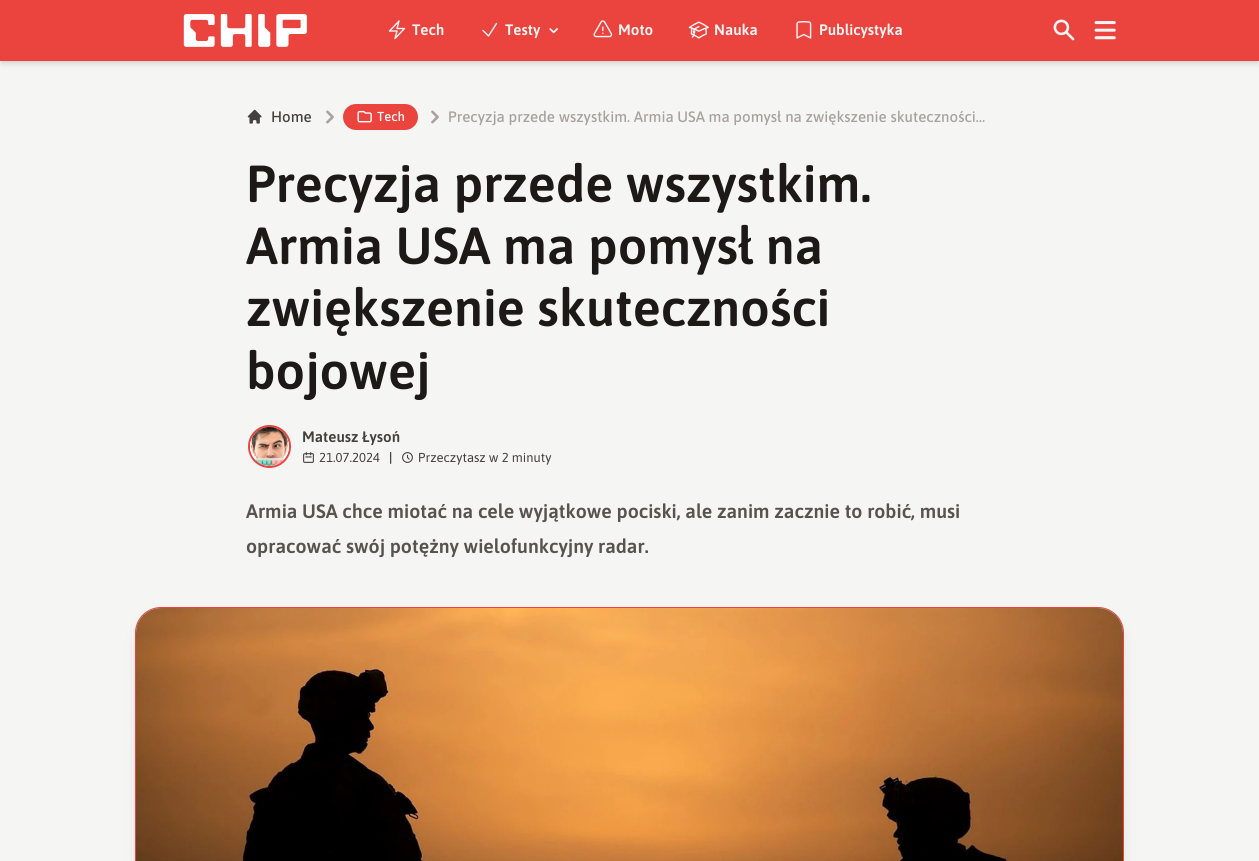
#include <cairo/cairo.h>
#include <math.h>
#include <stddef.h>

typedef struct { double x, y; const char *s; } line_t;
static cairo_t *cr;

static void rgb(unsigned color)
{
	cairo_set_source_rgb(cr, (color >> 16) / 255.0, (color >> 8 & 255) / 255.0, (color & 255) / 255.0);
}

static void rrect(double x, double y, double w, double h, double r)
{
	cairo_new_sub_path(cr);
	cairo_arc(cr, x + w - r, y + h - r, r, 0, M_PI / 2);
	cairo_arc(cr, x + r, y + h - r, r, M_PI / 2, M_PI);
	cairo_arc(cr, x + r, y + r, r, M_PI, 1.5 * M_PI);
	cairo_arc(cr, x + w - r, y + r, r, 1.5 * M_PI, 2 * M_PI);
	cairo_close_path(cr);
}

static void soft_shadow(double x, double y, double w, double h, double r, double blur, double alpha)
{
	cairo_push_group_with_content(cr, CAIRO_CONTENT_ALPHA);
	cairo_set_operator(cr, CAIRO_OPERATOR_SOURCE);
	for (int i = 15; i >= -15 && fmin(w, h) + blur * i / 3 > 0; i -= 2) {
		double e = blur * i / 6;
		cairo_set_source_rgba(cr, 0, 0, 0, alpha * erfc((i - 1) / 8.5) / 2);
		rrect(x - e, y - e, w + 2 * e, h + 2 * e, fmax(0, fmin(r + e + blur * .6, fmin(w, h) / 2 + e)));
		cairo_fill(cr);
	}
	cairo_pattern_t *soft = cairo_pop_group(cr);
	cairo_mask(cr, soft);
	cairo_pattern_destroy(soft);
}

static void image(const char *path, double x, double y, double w, double h)
{
	cairo_surface_t *image = cairo_image_surface_create_from_png(path);
	cairo_save(cr);
	cairo_set_source_surface(cr, image, x, y);
	cairo_rectangle(cr, x, y, w, h);
	cairo_fill(cr);
	cairo_restore(cr);
	cairo_surface_destroy(image);
}

int main(void) {
	cairo_surface_t *surface = cairo_image_surface_create(CAIRO_FORMAT_RGB24, 1259, 861);
	cr = cairo_create(surface);
	cairo_font_options_t *options = cairo_font_options_create();
	cairo_font_options_set_hint_metrics(options, CAIRO_HINT_METRICS_OFF);
	cairo_font_options_set_hint_style(options, CAIRO_HINT_STYLE_NONE);
	cairo_set_font_options(cr, options);
	cairo_set_miter_limit(cr, 4);
	rgb(0xf5f5f4);
	cairo_paint(cr);
	rgb(0x000000);
	soft_shadow(2, 4, 1255, 57, 0, 2, 0.1);
	soft_shadow(1, 5, 1257, 59, 0, 3, 0.1);
	rgb(0xeb443f);
	cairo_rectangle(cr, 0, 0, 1259, 61);
	cairo_fill(cr);
	image("img/1.png", 183, 14, 124, 33);
	cairo_new_path(cr);
	cairo_move_to(cr, 389.5, 31);
	cairo_line_to(cr, 399, 21);
	cairo_line_to(cr, 397, 28.5);
	cairo_line_to(cr, 404.5, 28.5);
	cairo_line_to(cr, 395, 38.5);
	cairo_line_to(cr, 397, 31);
	cairo_close_path(cr);
	rgb(0xf5f5f4);
	cairo_set_line_width(cr, 1.4);
	cairo_set_line_cap(cr, CAIRO_LINE_CAP_ROUND);
	cairo_set_line_join(cr, CAIRO_LINE_JOIN_ROUND);
	cairo_stroke(cr);
	cairo_new_path(cr);
	cairo_move_to(cr, 483, 30.5);
	cairo_line_to(cr, 488.5, 36);
	cairo_line_to(cr, 496.5, 23.5);
	cairo_stroke(cr);
	image("img/2.png", 549, 28, 9, 6);
	image("img/3.png", 593, 20, 20, 18);
	image("img/4.png", 688, 21, 21, 18);
	image("img/5.png", 796, 21, 16, 18);
	image("img/6.png", 1053, 19, 22, 22);
	image("img/7.png", 1094, 21, 22, 19);
	image("img/8.png", 247, 109, 15, 15);
	image("img/9.png", 326, 110, 8, 14);
	rgb(0xeb443f);
	rrect(343, 104, 75, 26, 13);
	cairo_fill(cr);
	image("img/10.png", 357, 110, 15, 13);
	image("img/9.png", 431, 110, 8, 14);
	cairo_arc(cr, 269.5, 446.5, 20.5, 0, 2 * M_PI);
	cairo_set_line_width(cr, 2);
	cairo_set_line_cap(cr, CAIRO_LINE_CAP_BUTT);
	cairo_set_line_join(cr, CAIRO_LINE_JOIN_MITER);
	cairo_stroke(cr);
	image("img/11.png", 250, 427, 39, 39);
	image("img/12.png", 303, 452, 11, 11);
	image("img/13.png", 402, 452, 11, 11);
	rgb(0x000000);
	soft_shadow(138, 620, 983, 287, 23, 7.5, 0.1);
	rgb(0xd6d3d1);
	rrect(135.5, 607.5, 988, 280, 25.5);
	cairo_fill_preserve(cr);
	rgb(0xeb443f);
	cairo_set_line_width(cr, 1);
	cairo_stroke(cr);
	image("img/14.png", 136, 608, 987, 253);
	cairo_select_font_face(cr, "Asap SemiBold", CAIRO_FONT_SLANT_NORMAL, CAIRO_FONT_WEIGHT_NORMAL);
	cairo_set_font_size(cr, 15.15);
	rgb(0xf5f5f4);
	{
		static const line_t items[] = {
			{412, 35, "Tech"},
			{505, 35, "Testy"},
			{618, 35, "Moto"},
			{714, 35, "Nauka"},
			{819, 35, "Publicystyka"},
		};
		for (size_t i = 0; i < sizeof items / sizeof *items; i++) {
			cairo_move_to(cr, items[i].x, items[i].y);
			cairo_show_text(cr, items[i].s);
		}
	}
	cairo_select_font_face(cr, "Asap Medium", CAIRO_FONT_SLANT_NORMAL, CAIRO_FONT_WEIGHT_NORMAL);
	rgb(0x44403c);
	cairo_move_to(cr, 271, 122);
	cairo_show_text(cr, "Home");
	cairo_set_font_size(cr, 13);
	rgb(0xffffff);
	cairo_move_to(cr, 377, 121);
	cairo_show_text(cr, "Tech");
	cairo_set_font_size(cr, 15.15);
	rgb(0xa8a29e);
	cairo_move_to(cr, 448, 122);
	cairo_show_text(cr, "Precyzja przede wszystkim. Armia USA ma pomysł na zwiększenie skuteczności…");
	cairo_select_font_face(cr, "Asap SemiBold", CAIRO_FONT_SLANT_NORMAL, CAIRO_FONT_WEIGHT_NORMAL);
	cairo_set_font_size(cr, 52);
	rgb(0x1c1917);
	{
		static const line_t items[] = {
			{246, 202, "Precyzja przede wszystkim."},
			{246, 264, "Armia USA ma pomysł na"},
			{246, 326, "zwiększenie skuteczności"},
			{246, 389, "bojowej"},
		};
		for (size_t i = 0; i < sizeof items / sizeof *items; i++) {
			cairo_move_to(cr, items[i].x, items[i].y);
			cairo_show_text(cr, items[i].s);
		}
	}
	cairo_set_font_size(cr, 15.15);
	rgb(0x44403c);
	cairo_move_to(cr, 302, 442);
	cairo_show_text(cr, "Mateusz Łysoń");
	cairo_select_font_face(cr, "Asap", CAIRO_FONT_SLANT_NORMAL, CAIRO_FONT_WEIGHT_NORMAL);
	cairo_set_font_size(cr, 13);
	cairo_move_to(cr, 319, 462);
	cairo_show_text(cr, "21.07.2024");
	cairo_select_font_face(cr, "Asap SemiBold", CAIRO_FONT_SLANT_NORMAL, CAIRO_FONT_WEIGHT_NORMAL);
	cairo_move_to(cr, 389, 462);
	cairo_show_text(cr, "|");
	cairo_select_font_face(cr, "Asap", CAIRO_FONT_SLANT_NORMAL, CAIRO_FONT_WEIGHT_NORMAL);
	cairo_move_to(cr, 418, 462);
	cairo_show_text(cr, "Przeczytasz w 2 minuty");
	cairo_select_font_face(cr, "Asap SemiBold", CAIRO_FONT_SLANT_NORMAL, CAIRO_FONT_WEIGHT_NORMAL);
	cairo_set_font_size(cr, 19.5);
	rgb(0x57534e);
	cairo_move_to(cr, 246, 518);
	cairo_show_text(cr, "Armia USA chce miotać na cele wyjątkowe pociski, ale zanim zacznie to robić, musi");
	cairo_move_to(cr, 246, 553);
	cairo_show_text(cr, "opracować swój potężny wielofunkcyjny radar.");
	cairo_surface_write_to_png(surface, "page.png");
	cairo_font_options_destroy(options);
	cairo_destroy(cr);
	cairo_surface_destroy(surface);
	return 0;
}
